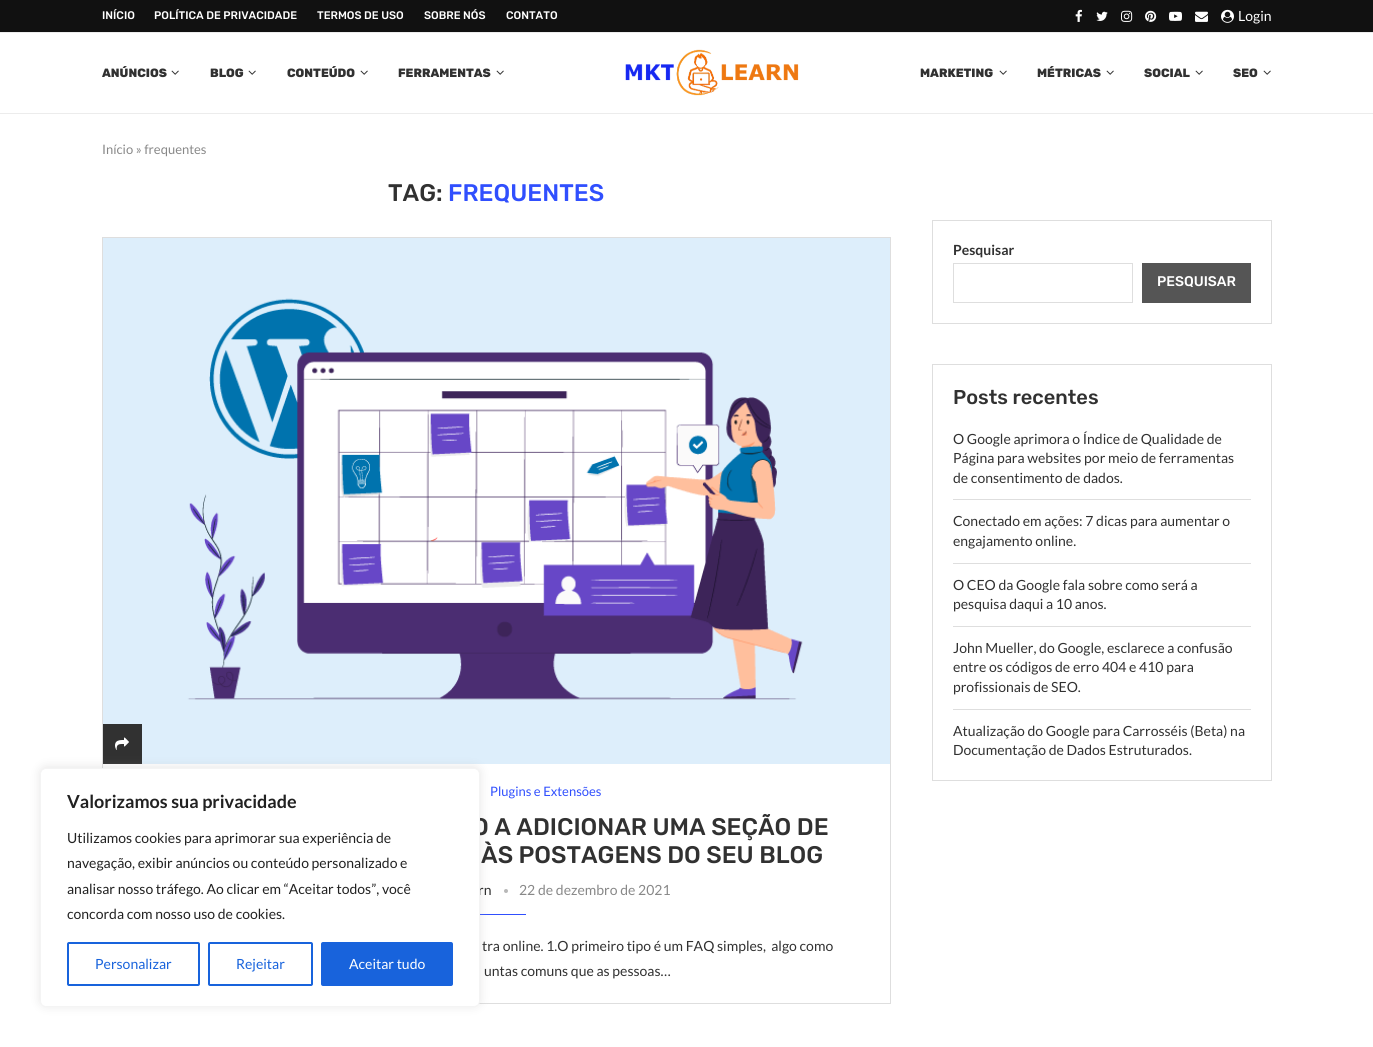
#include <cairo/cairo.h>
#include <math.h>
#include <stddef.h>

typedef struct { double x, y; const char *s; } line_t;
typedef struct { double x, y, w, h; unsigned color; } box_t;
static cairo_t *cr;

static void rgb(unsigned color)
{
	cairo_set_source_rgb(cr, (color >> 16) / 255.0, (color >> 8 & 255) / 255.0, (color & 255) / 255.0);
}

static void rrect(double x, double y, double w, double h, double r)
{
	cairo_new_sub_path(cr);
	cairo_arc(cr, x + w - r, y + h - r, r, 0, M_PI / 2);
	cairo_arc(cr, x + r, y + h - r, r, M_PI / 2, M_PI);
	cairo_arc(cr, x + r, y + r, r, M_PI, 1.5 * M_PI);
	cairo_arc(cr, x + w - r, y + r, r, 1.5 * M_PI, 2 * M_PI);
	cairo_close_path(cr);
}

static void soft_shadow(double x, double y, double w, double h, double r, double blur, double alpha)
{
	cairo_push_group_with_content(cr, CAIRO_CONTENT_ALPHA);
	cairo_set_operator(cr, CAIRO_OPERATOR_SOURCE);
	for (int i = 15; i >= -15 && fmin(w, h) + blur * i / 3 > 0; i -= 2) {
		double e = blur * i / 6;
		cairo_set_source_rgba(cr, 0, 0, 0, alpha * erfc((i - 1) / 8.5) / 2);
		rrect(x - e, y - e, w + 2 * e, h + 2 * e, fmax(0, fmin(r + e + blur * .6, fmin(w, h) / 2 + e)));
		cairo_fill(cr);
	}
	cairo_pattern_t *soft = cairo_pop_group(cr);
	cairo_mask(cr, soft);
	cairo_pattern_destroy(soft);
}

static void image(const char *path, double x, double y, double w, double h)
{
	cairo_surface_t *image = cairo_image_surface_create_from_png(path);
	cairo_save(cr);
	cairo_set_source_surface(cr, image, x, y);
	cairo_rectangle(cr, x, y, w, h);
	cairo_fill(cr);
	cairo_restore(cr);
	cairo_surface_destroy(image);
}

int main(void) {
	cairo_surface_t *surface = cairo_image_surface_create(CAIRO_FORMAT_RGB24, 1373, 1047);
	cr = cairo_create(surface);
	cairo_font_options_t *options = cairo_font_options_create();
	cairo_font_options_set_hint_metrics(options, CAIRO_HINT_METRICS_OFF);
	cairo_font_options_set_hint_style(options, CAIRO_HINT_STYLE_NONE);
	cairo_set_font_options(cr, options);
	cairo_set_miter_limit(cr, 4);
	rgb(0xffffff);
	cairo_paint(cr);
	rgb(0x111111);
	cairo_rectangle(cr, 0, 0, 1373, 32);
	cairo_fill(cr);
	image("img/1.png", 1075, 9, 7, 13);
	image("img/2.png", 1096, 11, 12, 10);
	image("img/3.png", 1121, 10, 12, 12);
	image("img/4.png", 1145, 10, 12, 12);
	image("img/5.png", 1169, 11, 13, 10);
	image("img/6.png", 1195, 11, 13, 11);
	image("img/7.png", 1221, 9, 13, 14);
	rgb(0xececec);
	cairo_rectangle(cr, 0, 32, 1373, 1);
	cairo_fill(cr);
	cairo_rectangle(cr, 0, 113, 1373, 1);
	cairo_fill(cr);
	image("img/8.png", 171, 70, 8, 5);
	image("img/8.png", 248, 70, 8, 5);
	image("img/8.png", 360, 70, 8, 5);
	image("img/8.png", 496, 70, 8, 5);
	image("img/9.png", 625, 49, 174, 47);
	image("img/8.png", 999, 70, 8, 5);
	image("img/8.png", 1106, 70, 8, 5);
	image("img/8.png", 1195, 70, 8, 5);
	image("img/8.png", 1263, 70, 8, 5);
	cairo_rectangle(cr, 102.5, 237.5, 788, 766);
	rgb(0xdedede);
	cairo_set_line_width(cr, 1);
	cairo_stroke(cr);
	image("img/10.png", 103, 238, 787, 526);
	rgb(0x313131);
	cairo_rectangle(cr, 103, 724, 39, 40);
	cairo_fill(cr);
	image("img/11.png", 115, 737, 14, 13);
	rgb(0xb8b8b8);
	cairo_arc(cr, 506, 891, 2, 0, 2 * M_PI);
	cairo_fill(cr);
	rgb(0x304ffe);
	cairo_rectangle(cr, 480, 914, 46, 1);
	cairo_fill(cr);
	cairo_rectangle(cr, 932.5, 220.5, 339, 103);
	rgb(0xdedede);
	cairo_stroke(cr);
	cairo_rectangle(cr, 953.5, 263.5, 179, 39);
	cairo_stroke(cr);
	rgb(0x555555);
	cairo_rectangle(cr, 1142, 263, 109, 40);
	cairo_fill(cr);
	cairo_rectangle(cr, 932.5, 364.5, 339, 416);
	rgb(0xdedede);
	cairo_stroke(cr);
	{
		static const box_t items[] = {
			{953, 499, 298, 1, 0xdedede},
			{953, 563, 298, 1, 0xdedede},
			{953, 626, 298, 1, 0xdedede},
			{953, 709, 298, 1, 0xdedede},
		};
		for (size_t i = 0; i < sizeof items / sizeof *items; i++) {
			rgb(items[i].color);
			cairo_rectangle(cr, items[i].x, items[i].y, items[i].w, items[i].h);
			cairo_fill(cr);
		}
	}
	rgb(0xacabab);
	soft_shadow(40, 767, 440, 239, 6, 5, 0.3);
	cairo_select_font_face(cr, "Rubik Medium", CAIRO_FONT_SLANT_NORMAL, CAIRO_FONT_WEIGHT_NORMAL);
	cairo_set_font_size(cr, 11);
	rgb(0xffffff);
	{
		static const line_t items[] = {
			{102, 19, "INÍCIO"},
			{154, 19, "POLÍTICA DE PRIVACIDADE"},
			{317, 19, "TERMOS DE USO"},
			{424, 19, "SOBRE NÓS"},
			{506, 19, "CONTATO"},
		};
		for (size_t i = 0; i < sizeof items / sizeof *items; i++) {
			cairo_move_to(cr, items[i].x, items[i].y);
			cairo_show_text(cr, items[i].s);
		}
	}
	cairo_select_font_face(cr, "Lato", CAIRO_FONT_SLANT_NORMAL, CAIRO_FONT_WEIGHT_NORMAL);
	cairo_set_font_size(cr, 14);
	cairo_move_to(cr, 1238, 21);
	cairo_show_text(cr, "Login");
	cairo_select_font_face(cr, "Rubik ExtraBold", CAIRO_FONT_SLANT_NORMAL, CAIRO_FONT_WEIGHT_NORMAL);
	cairo_set_font_size(cr, 12);
	rgb(0x313131);
	{
		static const line_t items[] = {
			{102, 77, "ANÚNCIOS"},
			{210, 77, "BLOG"},
			{287, 77, "CONTEÚDO"},
			{398, 77, "FERRAMENTAS"},
			{920, 77, "MARKETING"},
			{1037, 77, "MÉTRICAS"},
			{1144, 77, "SOCIAL"},
			{1233, 77, "SEO"},
		};
		for (size_t i = 0; i < sizeof items / sizeof *items; i++) {
			cairo_move_to(cr, items[i].x, items[i].y);
			cairo_show_text(cr, items[i].s);
		}
	}
	cairo_select_font_face(cr, "Lato", CAIRO_FONT_SLANT_NORMAL, CAIRO_FONT_WEIGHT_NORMAL);
	cairo_set_font_size(cr, 13);
	rgb(0x888888);
	cairo_move_to(cr, 102, 154);
	cairo_show_text(cr, "Início » frequentes");
	cairo_select_font_face(cr, "Rubik Medium", CAIRO_FONT_SLANT_NORMAL, CAIRO_FONT_WEIGHT_NORMAL);
	cairo_set_font_size(cr, 24);
	rgb(0x313131);
	cairo_move_to(cr, 388, 201);
	cairo_show_text(cr, "TAG:");
	rgb(0x304ffe);
	cairo_move_to(cr, 448, 201);
	cairo_show_text(cr, "FREQUENTES");
	cairo_select_font_face(cr, "Lato", CAIRO_FONT_SLANT_NORMAL, CAIRO_FONT_WEIGHT_NORMAL);
	cairo_set_font_size(cr, 13);
	cairo_move_to(cr, 490, 796);
	cairo_show_text(cr, "Plugins e Extensões");
	cairo_select_font_face(cr, "Rubik Medium", CAIRO_FONT_SLANT_NORMAL, CAIRO_FONT_WEIGHT_NORMAL);
	cairo_set_font_size(cr, 24);
	rgb(0x313131);
	cairo_move_to(cr, 472, 835);
	cairo_show_text(cr, "O A ADICIONAR UMA SEÇÃO DE");
	cairo_move_to(cr, 481, 863);
	cairo_show_text(cr, "ÀS POSTAGENS DO SEU BLOG");
	cairo_select_font_face(cr, "Lato", CAIRO_FONT_SLANT_NORMAL, CAIRO_FONT_WEIGHT_NORMAL);
	cairo_set_font_size(cr, 14);
	cairo_move_to(cr, 478, 895);
	cairo_show_text(cr, "rn");
	rgb(0x888888);
	cairo_move_to(cr, 519, 895);
	cairo_show_text(cr, "22 de dezembro de 2021");
	rgb(0x313131);
	cairo_move_to(cr, 482, 951);
	cairo_show_text(cr, "tra online. 1.O primeiro tipo é um FAQ simples,  algo como");
	cairo_move_to(cr, 484, 976);
	cairo_show_text(cr, "untas comuns que as pessoas…");
	cairo_select_font_face(cr, "Lato", CAIRO_FONT_SLANT_NORMAL, CAIRO_FONT_WEIGHT_BOLD);
	cairo_move_to(cr, 953, 255);
	cairo_show_text(cr, "Pesquisar");
	cairo_select_font_face(cr, "Rubik Medium", CAIRO_FONT_SLANT_NORMAL, CAIRO_FONT_WEIGHT_NORMAL);
	rgb(0xffffff);
	cairo_move_to(cr, 1157, 286);
	cairo_show_text(cr, "PESQUISAR");
	cairo_set_font_size(cr, 20);
	rgb(0x313131);
	cairo_move_to(cr, 953, 404);
	cairo_show_text(cr, "Posts recentes");
	cairo_select_font_face(cr, "Lato", CAIRO_FONT_SLANT_NORMAL, CAIRO_FONT_WEIGHT_NORMAL);
	cairo_set_font_size(cr, 14);
	{
		static const line_t items[] = {
			{953, 444, "O Google aprimora o Índice de Qualidade de"},
			{953, 463, "Página para websites por meio de ferramentas"},
			{953, 483, "de consentimento de dados."},
			{953, 526, "Conectado em ações: 7 dicas para aumentar o"},
			{953, 546, "engajamento online."},
			{953, 590, "O CEO da Google fala sobre como será a"},
			{953, 609, "pesquisa daqui a 10 anos."},
			{953, 653, "John Mueller, do Google, esclarece a confusão"},
			{953, 672, "entre os códigos de erro 404 e 410 para"},
			{953, 692, "profissionais de SEO."},
			{953, 736, "Atualização do Google para Carrosséis (Beta) na"},
			{953, 755, "Documentação de Dados Estruturados."},
		};
		for (size_t i = 0; i < sizeof items / sizeof *items; i++) {
			cairo_move_to(cr, items[i].x, items[i].y);
			cairo_show_text(cr, items[i].s);
		}
	}
	rgb(0xffffff);
	rrect(40.5, 768.5, 439, 238, 5.5);
	cairo_fill_preserve(cr);
	rgb(0xf4f4f4);
	cairo_stroke(cr);
	cairo_select_font_face(cr, "Lato", CAIRO_FONT_SLANT_NORMAL, CAIRO_FONT_WEIGHT_BOLD);
	cairo_set_font_size(cr, 18);
	rgb(0x212121);
	cairo_move_to(cr, 67, 808);
	cairo_show_text(cr, "Valorizamos sua privacidade");
	cairo_select_font_face(cr, "Lato", CAIRO_FONT_SLANT_NORMAL, CAIRO_FONT_WEIGHT_NORMAL);
	cairo_set_font_size(cr, 14);
	{
		static const line_t items[] = {
			{67, 843, "Utilizamos cookies para aprimorar sua experiência de"},
			{67, 868, "navegação, exibir anúncios ou conteúdo personalizado e"},
			{67, 894, "analisar nosso tráfego. Ao clicar em “Aceitar todos”, você"},
			{67, 919, "concorda com nosso uso de cookies."},
		};
		for (size_t i = 0; i < sizeof items / sizeof *items; i++) {
			cairo_move_to(cr, items[i].x, items[i].y);
			cairo_show_text(cr, items[i].s);
		}
	}
	rrect(68, 943, 131, 42, 1);
	rgb(0x1863dc);
	cairo_set_line_width(cr, 2);
	cairo_stroke(cr);
	cairo_move_to(cr, 95, 969);
	cairo_show_text(cr, "Personalizar");
	rrect(209, 943, 103, 42, 1);
	cairo_stroke(cr);
	cairo_move_to(cr, 236, 969);
	cairo_show_text(cr, "Rejeitar");
	rrect(322, 943, 130, 42, 1);
	cairo_fill_preserve(cr);
	cairo_stroke(cr);
	rgb(0xffffff);
	cairo_move_to(cr, 349, 969);
	cairo_show_text(cr, "Aceitar tudo");
	cairo_surface_write_to_png(surface, "page.png");
	cairo_font_options_destroy(options);
	cairo_destroy(cr);
	cairo_surface_destroy(surface);
	return 0;
}
